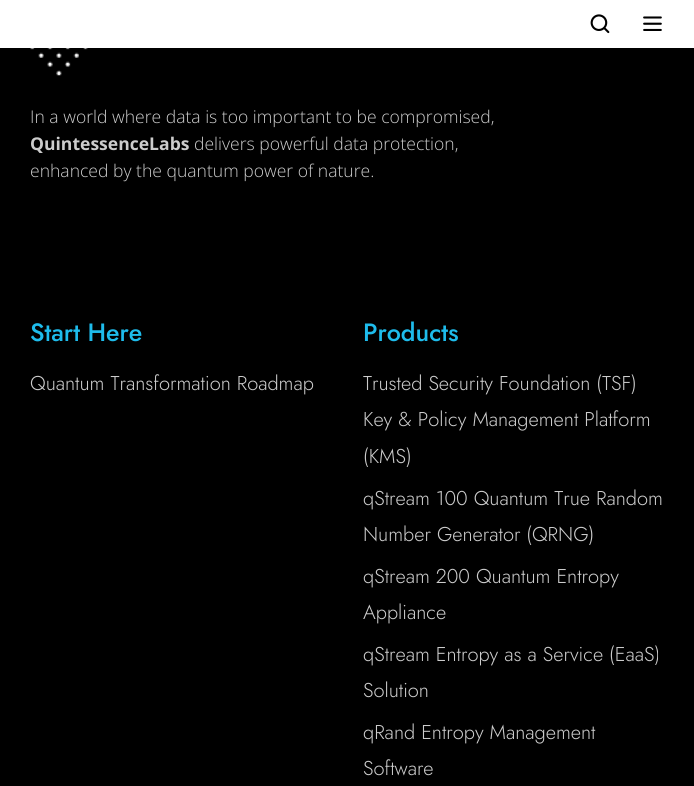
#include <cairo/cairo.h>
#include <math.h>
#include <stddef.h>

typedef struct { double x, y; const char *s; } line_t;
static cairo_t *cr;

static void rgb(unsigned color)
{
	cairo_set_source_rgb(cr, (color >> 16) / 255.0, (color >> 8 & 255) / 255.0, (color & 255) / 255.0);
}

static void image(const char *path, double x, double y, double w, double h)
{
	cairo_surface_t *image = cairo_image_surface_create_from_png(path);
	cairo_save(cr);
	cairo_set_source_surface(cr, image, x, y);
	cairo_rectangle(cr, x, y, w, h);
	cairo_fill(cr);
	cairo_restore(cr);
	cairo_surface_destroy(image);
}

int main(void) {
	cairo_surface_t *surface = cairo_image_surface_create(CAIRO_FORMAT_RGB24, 694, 786);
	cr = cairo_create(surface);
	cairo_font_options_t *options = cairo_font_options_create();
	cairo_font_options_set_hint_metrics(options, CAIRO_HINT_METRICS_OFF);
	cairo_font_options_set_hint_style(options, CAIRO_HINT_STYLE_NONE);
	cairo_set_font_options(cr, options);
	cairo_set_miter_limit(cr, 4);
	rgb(0x000000);
	cairo_paint(cr);
	rgb(0xffffff);
	cairo_rectangle(cr, 0, 0, 694, 48);
	cairo_fill(cr);
	image("img/1.png", 590, 14, 20, 20);
	image("img/2.png", 643, 16, 19, 15);
	image("img/3.png", 30, 48, 58, 28);
	cairo_select_font_face(cr, "Open Sans Light", CAIRO_FONT_SLANT_NORMAL, CAIRO_FONT_WEIGHT_NORMAL);
	cairo_set_font_size(cr, 17.55);
	rgb(0xcccccc);
	cairo_move_to(cr, 30, 123);
	cairo_show_text(cr, "In a world where data is too important to be compromised,");
	cairo_select_font_face(cr, "Open Sans", CAIRO_FONT_SLANT_NORMAL, CAIRO_FONT_WEIGHT_BOLD);
	cairo_move_to(cr, 30, 150);
	cairo_show_text(cr, "QuintessenceLabs");
	cairo_select_font_face(cr, "Open Sans Light", CAIRO_FONT_SLANT_NORMAL, CAIRO_FONT_WEIGHT_NORMAL);
	cairo_move_to(cr, 194, 150);
	cairo_show_text(cr, "delivers powerful data protection,");
	cairo_move_to(cr, 30, 177);
	cairo_show_text(cr, "enhanced by the quantum power of nature.");
	cairo_select_font_face(cr, "Jost Medium", CAIRO_FONT_SLANT_NORMAL, CAIRO_FONT_WEIGHT_NORMAL);
	cairo_set_font_size(cr, 25);
	rgb(0x1ebcec);
	cairo_move_to(cr, 30, 341);
	cairo_show_text(cr, "Start Here");
	cairo_select_font_face(cr, "Jost Light", CAIRO_FONT_SLANT_NORMAL, CAIRO_FONT_WEIGHT_NORMAL);
	cairo_set_font_size(cr, 20);
	rgb(0xcccccc);
	cairo_move_to(cr, 30, 390);
	cairo_show_text(cr, "Quantum Transformation Roadmap");
	cairo_select_font_face(cr, "Jost Medium", CAIRO_FONT_SLANT_NORMAL, CAIRO_FONT_WEIGHT_NORMAL);
	cairo_set_font_size(cr, 25);
	rgb(0x1ebcec);
	cairo_move_to(cr, 363, 341);
	cairo_show_text(cr, "Products");
	cairo_select_font_face(cr, "Jost Light", CAIRO_FONT_SLANT_NORMAL, CAIRO_FONT_WEIGHT_NORMAL);
	cairo_set_font_size(cr, 20);
	rgb(0xcccccc);
	{
		static const line_t items[] = {
			{363, 390, "Trusted Security Foundation (TSF)"},
			{363, 426, "Key & Policy Management Platform"},
			{363, 463, "(KMS)"},
			{363, 505, "qStream 100 Quantum True Random"},
			{363, 541, "Number Generator (QRNG)"},
			{363, 583, "qStream 200 Quantum Entropy"},
			{363, 619, "Appliance"},
			{363, 661, "qStream Entropy as a Service (EaaS)"},
			{363, 697, "Solution"},
			{363, 739, "qRand Entropy Management"},
			{363, 775, "Software"},
		};
		for (size_t i = 0; i < sizeof items / sizeof *items; i++) {
			cairo_move_to(cr, items[i].x, items[i].y);
			cairo_show_text(cr, items[i].s);
		}
	}
	cairo_surface_write_to_png(surface, "page.png");
	cairo_font_options_destroy(options);
	cairo_destroy(cr);
	cairo_surface_destroy(surface);
	return 0;
}
